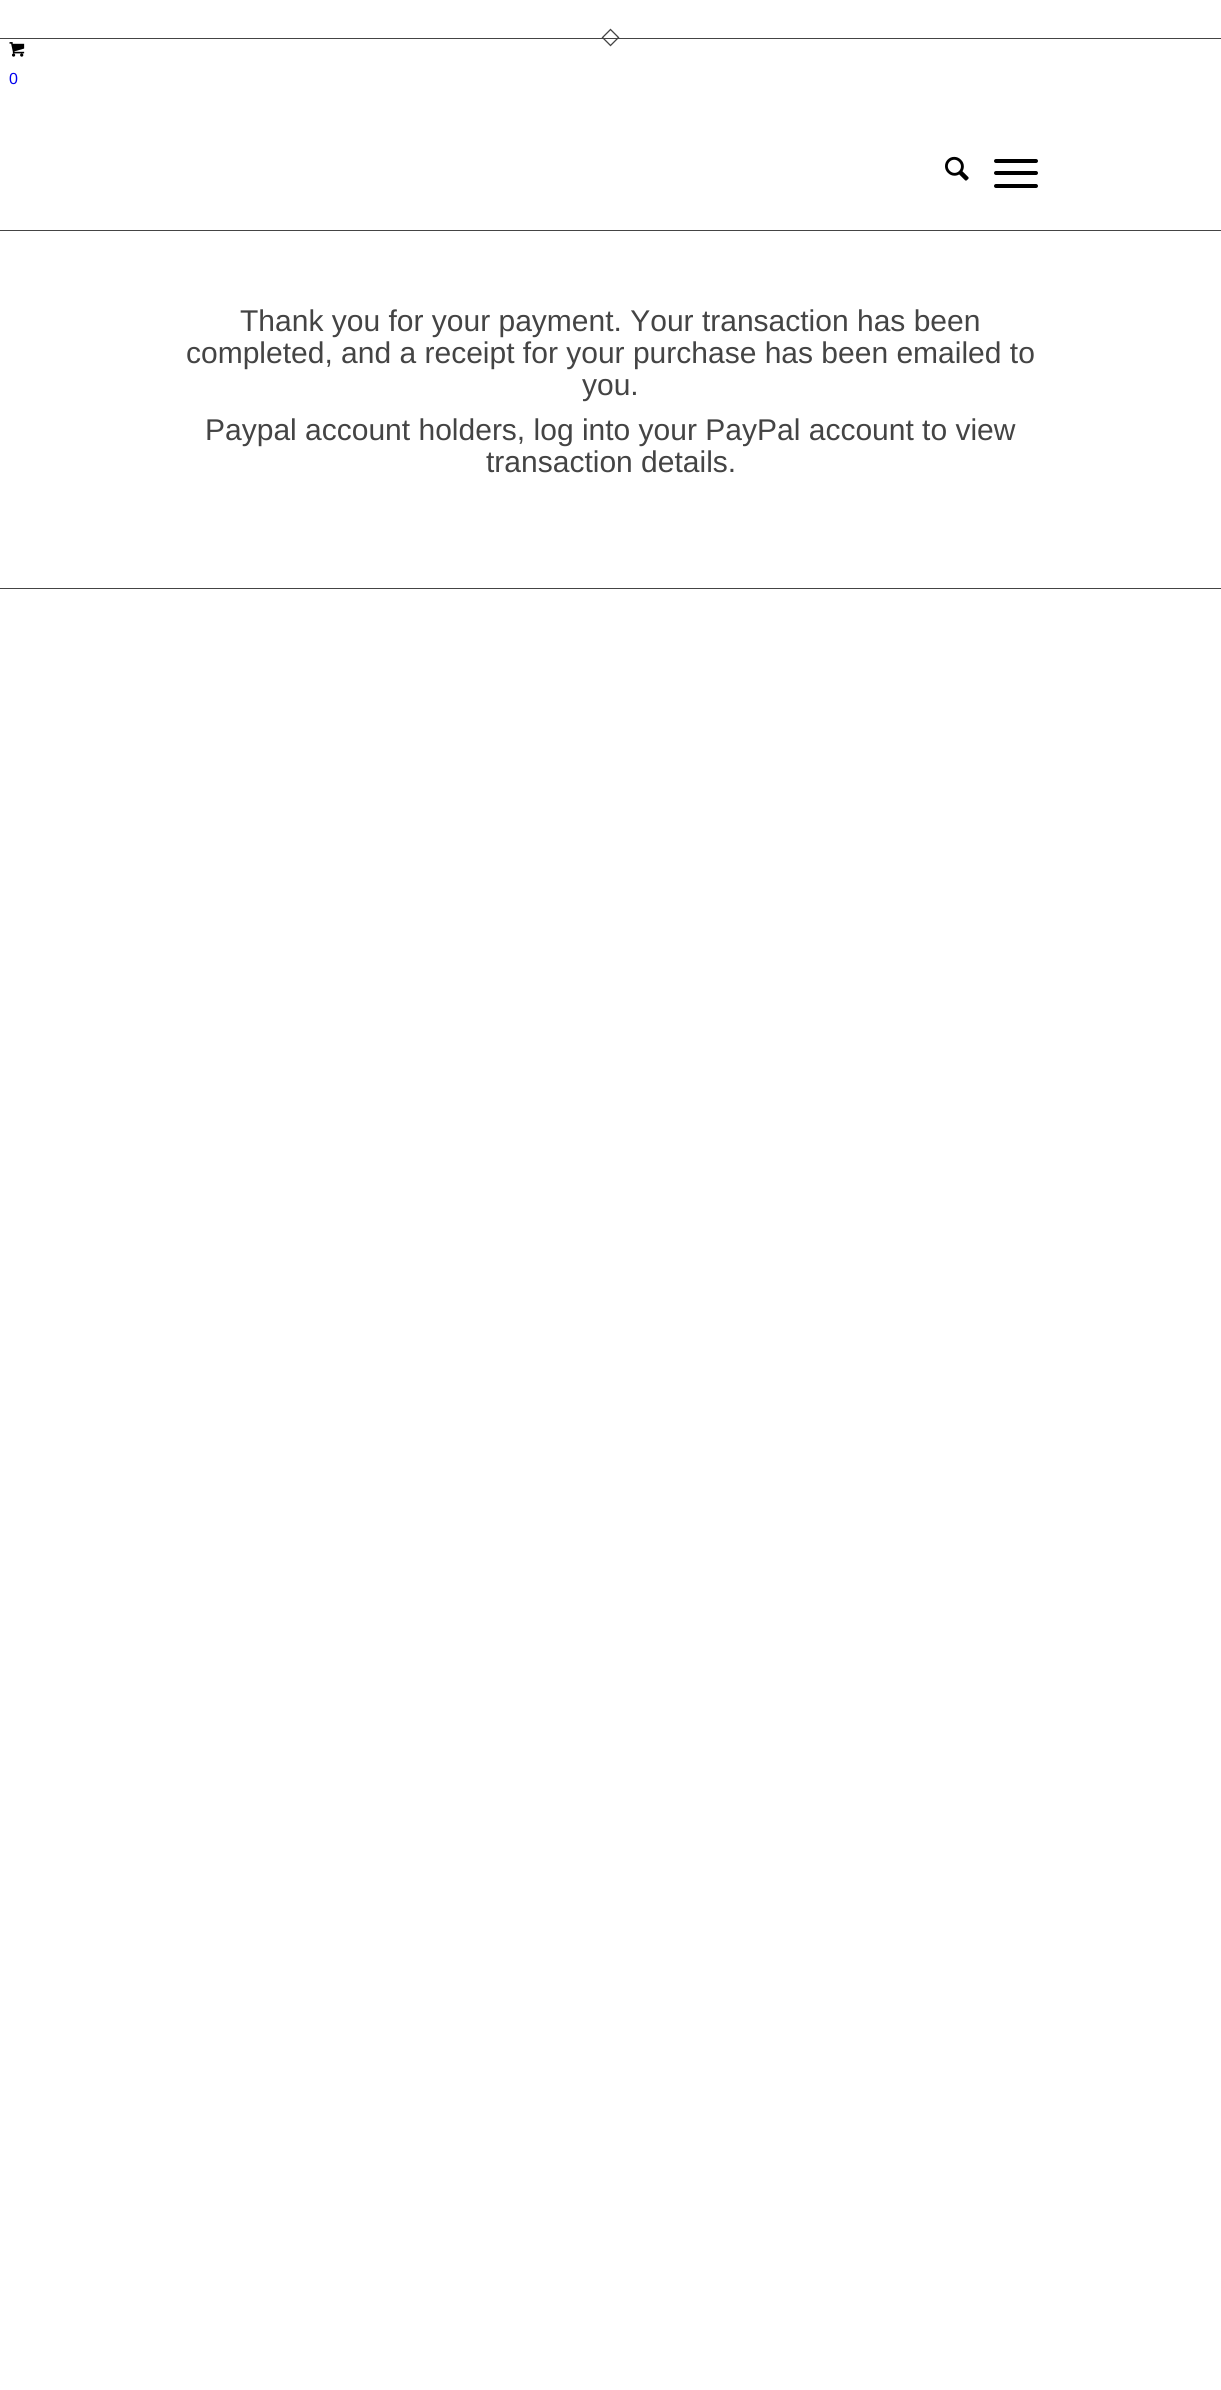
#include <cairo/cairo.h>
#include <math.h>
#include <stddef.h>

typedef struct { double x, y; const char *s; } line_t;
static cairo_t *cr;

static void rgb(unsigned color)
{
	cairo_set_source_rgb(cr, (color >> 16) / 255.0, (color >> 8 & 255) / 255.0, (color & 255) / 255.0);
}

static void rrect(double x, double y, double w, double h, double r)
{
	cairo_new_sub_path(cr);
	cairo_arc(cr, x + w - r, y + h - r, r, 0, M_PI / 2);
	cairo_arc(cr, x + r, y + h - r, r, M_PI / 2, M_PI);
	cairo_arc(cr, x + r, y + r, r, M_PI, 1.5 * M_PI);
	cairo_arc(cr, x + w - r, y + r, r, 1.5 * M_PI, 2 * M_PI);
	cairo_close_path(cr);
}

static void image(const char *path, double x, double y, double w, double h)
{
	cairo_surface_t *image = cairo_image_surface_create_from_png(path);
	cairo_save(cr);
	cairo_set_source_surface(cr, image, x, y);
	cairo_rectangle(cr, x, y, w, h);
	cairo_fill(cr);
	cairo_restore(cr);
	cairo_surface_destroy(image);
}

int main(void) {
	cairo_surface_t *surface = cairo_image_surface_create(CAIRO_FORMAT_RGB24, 1221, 2390);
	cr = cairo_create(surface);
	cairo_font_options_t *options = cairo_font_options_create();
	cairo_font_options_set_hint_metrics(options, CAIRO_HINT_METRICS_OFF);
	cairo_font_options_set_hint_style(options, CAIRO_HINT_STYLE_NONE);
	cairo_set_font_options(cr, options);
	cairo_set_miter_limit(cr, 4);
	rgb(0xffffff);
	cairo_paint(cr);
	rgb(0x444444);
	cairo_rectangle(cr, 0, 38, 1221, 1);
	cairo_fill(cr);
	cairo_rectangle(cr, 0, 230, 1221, 1);
	cairo_fill(cr);
	cairo_new_path(cr);
	cairo_move_to(cr, 610.5, 29.5);
	cairo_line_to(cr, 618.5, 37.5);
	cairo_line_to(cr, 610.5, 45.5);
	cairo_line_to(cr, 602.5, 37.5);
	cairo_close_path(cr);
	cairo_set_line_width(cr, 1.3);
	cairo_stroke(cr);
	image("img/1.png", 9, 42, 16, 15);
	image("img/2.png", 945, 156, 24, 25);
	rgb(0x000000);
	rrect(994, 171, 44, 4, 2);
	cairo_fill(cr);
	rrect(994, 159, 44, 4, 2);
	cairo_fill(cr);
	rrect(994, 184, 44, 4, 2);
	cairo_fill(cr);
	rgb(0x444444);
	cairo_rectangle(cr, 0, 588, 1221, 1);
	cairo_fill(cr);
	cairo_select_font_face(cr, "Liberation Sans", CAIRO_FONT_SLANT_NORMAL, CAIRO_FONT_WEIGHT_NORMAL);
	cairo_set_font_size(cr, 16);
	rgb(0x0000ee);
	cairo_move_to(cr, 9, 84);
	cairo_show_text(cr, "0");
	cairo_set_font_size(cr, 30);
	rgb(0x444444);
	{
		static const line_t items[] = {
			{240, 331, "Thank you for your payment. Your transaction has been"},
			{186, 363, "completed, and a receipt for your purchase has been emailed to"},
			{582, 395, "you."},
			{205, 440, "Paypal account holders, log into your PayPal account to view"},
			{486, 472, "transaction details."},
		};
		for (size_t i = 0; i < sizeof items / sizeof *items; i++) {
			cairo_move_to(cr, items[i].x, items[i].y);
			cairo_show_text(cr, items[i].s);
		}
	}
	cairo_surface_write_to_png(surface, "page.png");
	cairo_font_options_destroy(options);
	cairo_destroy(cr);
	cairo_surface_destroy(surface);
	return 0;
}
